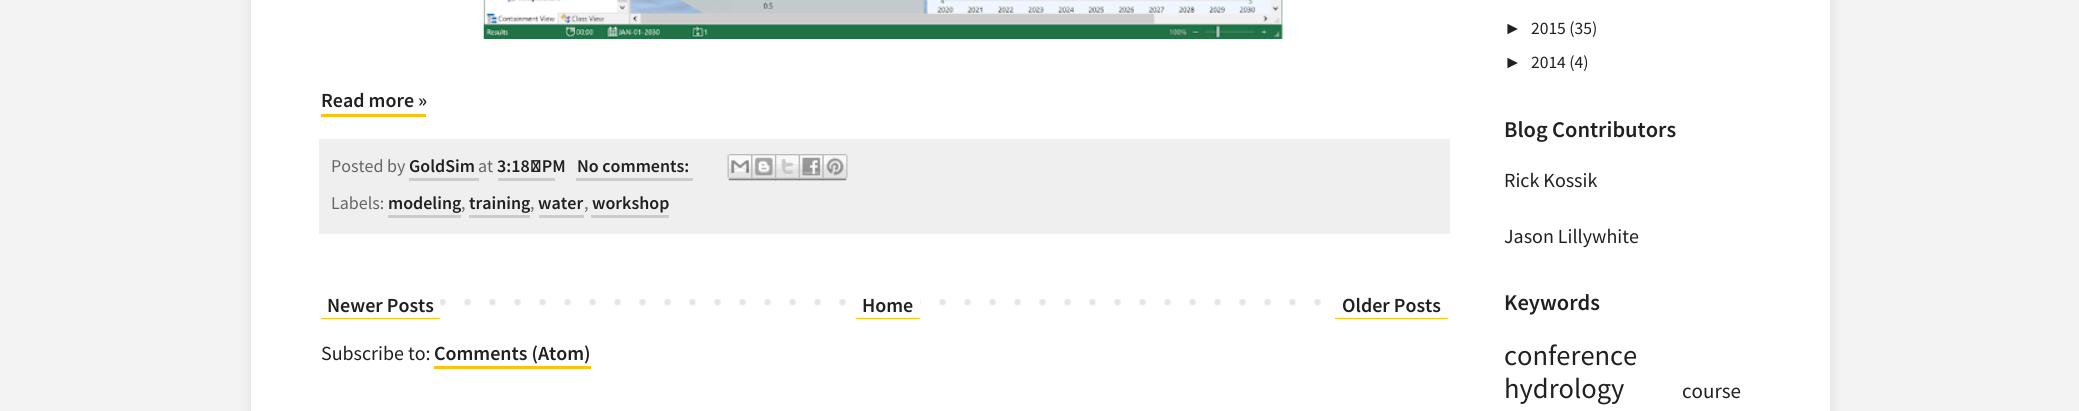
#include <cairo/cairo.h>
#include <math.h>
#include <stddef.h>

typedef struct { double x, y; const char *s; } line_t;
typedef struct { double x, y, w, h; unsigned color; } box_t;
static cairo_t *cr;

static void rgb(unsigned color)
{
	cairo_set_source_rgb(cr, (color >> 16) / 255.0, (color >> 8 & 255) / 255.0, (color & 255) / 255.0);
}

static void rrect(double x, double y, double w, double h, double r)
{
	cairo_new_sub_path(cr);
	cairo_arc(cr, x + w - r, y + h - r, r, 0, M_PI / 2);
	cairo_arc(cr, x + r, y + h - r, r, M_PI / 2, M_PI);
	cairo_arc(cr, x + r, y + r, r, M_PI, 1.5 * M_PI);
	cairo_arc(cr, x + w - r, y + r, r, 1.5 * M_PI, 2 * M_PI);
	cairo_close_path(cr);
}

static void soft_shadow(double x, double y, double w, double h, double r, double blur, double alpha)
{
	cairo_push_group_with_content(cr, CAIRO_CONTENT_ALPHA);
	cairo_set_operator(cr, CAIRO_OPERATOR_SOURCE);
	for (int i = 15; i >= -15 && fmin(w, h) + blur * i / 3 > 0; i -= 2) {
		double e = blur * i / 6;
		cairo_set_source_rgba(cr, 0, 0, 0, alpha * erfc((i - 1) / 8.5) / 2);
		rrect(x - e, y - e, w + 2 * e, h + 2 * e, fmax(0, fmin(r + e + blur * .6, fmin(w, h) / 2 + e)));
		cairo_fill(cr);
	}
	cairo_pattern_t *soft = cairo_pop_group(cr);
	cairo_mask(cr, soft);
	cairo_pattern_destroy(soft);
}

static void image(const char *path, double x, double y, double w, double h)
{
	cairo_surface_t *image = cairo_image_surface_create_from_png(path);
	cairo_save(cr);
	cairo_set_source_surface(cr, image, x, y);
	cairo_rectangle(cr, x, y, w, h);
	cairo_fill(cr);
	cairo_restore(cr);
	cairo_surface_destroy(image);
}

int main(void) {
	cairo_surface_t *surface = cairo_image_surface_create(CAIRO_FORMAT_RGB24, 2079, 411);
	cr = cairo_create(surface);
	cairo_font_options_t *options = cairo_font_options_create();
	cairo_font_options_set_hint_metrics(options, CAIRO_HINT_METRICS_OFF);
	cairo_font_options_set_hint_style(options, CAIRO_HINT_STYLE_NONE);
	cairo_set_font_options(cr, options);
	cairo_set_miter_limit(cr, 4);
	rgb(0xf3f3f3);
	cairo_paint(cr);
	rgb(0x000000);
	soft_shadow(249, -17, 1584, 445, 0, 5.5, 0.07);
	rgb(0xffffff);
	cairo_rectangle(cr, 251, 0, 1579, 411);
	cairo_fill(cr);
	image("img/1.png", 483, 0, 800, 39);
	{
		static const box_t items[] = {
			{321, 114, 105, 3, 0xfec10d},
			{319, 139, 1131, 95, 0xefefef},
			{409, 178, 70, 3, 0xcccccc},
			{498, 178, 57, 3, 0xcccccc},
			{576, 178, 117, 3, 0xcccccc},
		};
		for (size_t i = 0; i < sizeof items / sizeof *items; i++) {
			rgb(items[i].color);
			cairo_rectangle(cr, items[i].x, items[i].y, items[i].w, items[i].h);
			cairo_fill(cr);
		}
	}
	image("img/2.png", 727, 154, 26, 27);
	image("img/3.png", 751, 154, 26, 27);
	image("img/4.png", 775, 154, 25, 27);
	image("img/5.png", 798, 154, 26, 27);
	image("img/6.png", 822, 154, 26, 27);
	{
		static const box_t items[] = {
			{388, 215, 73, 3, 0xcccccc},
			{469, 215, 61, 3, 0xcccccc},
			{539, 215, 45, 3, 0xcccccc},
			{591, 215, 78, 3, 0xcccccc},
		};
		for (size_t i = 0; i < sizeof items / sizeof *items; i++) {
			rgb(items[i].color);
			cairo_rectangle(cr, items[i].x, items[i].y, items[i].w, items[i].h);
			cairo_fill(cr);
		}
	}
	image("img/7.png", 440, 299, 881, 7);
	{
		static const box_t items[] = {
			{321, 318, 119, 1, 0xfec10d},
			{864, 299, 56, 7, 0xffffff},
			{856, 318, 64, 1, 0xfec10d},
			{1335, 318, 113, 1, 0xfec10d},
			{434, 366, 157, 3, 0xfec10d},
		};
		for (size_t i = 0; i < sizeof items / sizeof *items; i++) {
			rgb(items[i].color);
			cairo_rectangle(cr, items[i].x, items[i].y, items[i].w, items[i].h);
			cairo_fill(cr);
		}
	}
	cairo_select_font_face(cr, "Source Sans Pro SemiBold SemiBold", CAIRO_FONT_SLANT_NORMAL, CAIRO_FONT_WEIGHT_NORMAL);
	cairo_set_font_size(cr, 20);
	rgb(0x202020);
	cairo_move_to(cr, 321, 107);
	cairo_show_text(cr, "Read more »");
	cairo_select_font_face(cr, "Source Sans Pro", CAIRO_FONT_SLANT_NORMAL, CAIRO_FONT_WEIGHT_NORMAL);
	cairo_set_font_size(cr, 18);
	rgb(0x666666);
	cairo_move_to(cr, 331, 172);
	cairo_show_text(cr, "Posted by");
	cairo_select_font_face(cr, "Source Sans Pro SemiBold SemiBold", CAIRO_FONT_SLANT_NORMAL, CAIRO_FONT_WEIGHT_NORMAL);
	rgb(0x202020);
	cairo_move_to(cr, 409, 172);
	cairo_show_text(cr, "GoldSim");
	cairo_select_font_face(cr, "Source Sans Pro", CAIRO_FONT_SLANT_NORMAL, CAIRO_FONT_WEIGHT_NORMAL);
	rgb(0x666666);
	cairo_move_to(cr, 478, 172);
	cairo_show_text(cr, "at");
	cairo_select_font_face(cr, "Source Sans Pro SemiBold SemiBold", CAIRO_FONT_SLANT_NORMAL, CAIRO_FONT_WEIGHT_NORMAL);
	rgb(0x202020);
	cairo_move_to(cr, 497, 172);
	cairo_show_text(cr, "3:18 PM");
	cairo_move_to(cr, 577, 172);
	cairo_show_text(cr, "No comments:");
	cairo_select_font_face(cr, "Source Sans Pro", CAIRO_FONT_SLANT_NORMAL, CAIRO_FONT_WEIGHT_NORMAL);
	rgb(0x666666);
	cairo_move_to(cr, 331, 209);
	cairo_show_text(cr, "Labels:");
	cairo_select_font_face(cr, "Source Sans Pro SemiBold SemiBold", CAIRO_FONT_SLANT_NORMAL, CAIRO_FONT_WEIGHT_NORMAL);
	rgb(0x202020);
	cairo_move_to(cr, 388, 209);
	cairo_show_text(cr, "modeling");
	cairo_select_font_face(cr, "Source Sans Pro", CAIRO_FONT_SLANT_NORMAL, CAIRO_FONT_WEIGHT_NORMAL);
	rgb(0x666666);
	cairo_move_to(cr, 461, 209);
	cairo_show_text(cr, ",");
	cairo_select_font_face(cr, "Source Sans Pro SemiBold SemiBold", CAIRO_FONT_SLANT_NORMAL, CAIRO_FONT_WEIGHT_NORMAL);
	rgb(0x202020);
	cairo_move_to(cr, 469, 209);
	cairo_show_text(cr, "training");
	cairo_select_font_face(cr, "Source Sans Pro", CAIRO_FONT_SLANT_NORMAL, CAIRO_FONT_WEIGHT_NORMAL);
	rgb(0x666666);
	cairo_move_to(cr, 530, 209);
	cairo_show_text(cr, ",");
	cairo_select_font_face(cr, "Source Sans Pro SemiBold SemiBold", CAIRO_FONT_SLANT_NORMAL, CAIRO_FONT_WEIGHT_NORMAL);
	rgb(0x202020);
	cairo_move_to(cr, 538, 209);
	cairo_show_text(cr, "water");
	cairo_select_font_face(cr, "Source Sans Pro", CAIRO_FONT_SLANT_NORMAL, CAIRO_FONT_WEIGHT_NORMAL);
	rgb(0x666666);
	cairo_move_to(cr, 584, 209);
	cairo_show_text(cr, ",");
	cairo_select_font_face(cr, "Source Sans Pro SemiBold SemiBold", CAIRO_FONT_SLANT_NORMAL, CAIRO_FONT_WEIGHT_NORMAL);
	rgb(0x202020);
	cairo_move_to(cr, 592, 209);
	cairo_show_text(cr, "workshop");
	cairo_set_font_size(cr, 20);
	{
		static const line_t items[] = {
			{327, 312, "Newer Posts"},
			{862, 312, "Home"},
			{1342, 312, "Older Posts"},
		};
		for (size_t i = 0; i < sizeof items / sizeof *items; i++) {
			cairo_move_to(cr, items[i].x, items[i].y);
			cairo_show_text(cr, items[i].s);
		}
	}
	cairo_select_font_face(cr, "Source Sans Pro", CAIRO_FONT_SLANT_NORMAL, CAIRO_FONT_WEIGHT_NORMAL);
	cairo_move_to(cr, 321, 360);
	cairo_show_text(cr, "Subscribe to:");
	cairo_select_font_face(cr, "Source Sans Pro SemiBold SemiBold", CAIRO_FONT_SLANT_NORMAL, CAIRO_FONT_WEIGHT_NORMAL);
	cairo_move_to(cr, 434, 360);
	cairo_show_text(cr, "Comments (Atom)");
	cairo_select_font_face(cr, "Liberation Sans", CAIRO_FONT_SLANT_NORMAL, CAIRO_FONT_WEIGHT_NORMAL);
	cairo_set_font_size(cr, 17.5);
	cairo_move_to(cr, 1504, 34);
	cairo_show_text(cr, "►");
	cairo_select_font_face(cr, "Source Sans Pro", CAIRO_FONT_SLANT_NORMAL, CAIRO_FONT_WEIGHT_NORMAL);
	cairo_move_to(cr, 1531, 34);
	cairo_show_text(cr, "2015 (35)");
	cairo_select_font_face(cr, "Liberation Sans", CAIRO_FONT_SLANT_NORMAL, CAIRO_FONT_WEIGHT_NORMAL);
	cairo_move_to(cr, 1504, 68);
	cairo_show_text(cr, "►");
	cairo_select_font_face(cr, "Source Sans Pro", CAIRO_FONT_SLANT_NORMAL, CAIRO_FONT_WEIGHT_NORMAL);
	cairo_move_to(cr, 1531, 68);
	cairo_show_text(cr, "2014 (4)");
	cairo_select_font_face(cr, "Source Sans Pro SemiBold SemiBold", CAIRO_FONT_SLANT_NORMAL, CAIRO_FONT_WEIGHT_NORMAL);
	cairo_set_font_size(cr, 22.5);
	cairo_move_to(cr, 1504, 137);
	cairo_show_text(cr, "Blog Contributors");
	cairo_select_font_face(cr, "Source Sans Pro", CAIRO_FONT_SLANT_NORMAL, CAIRO_FONT_WEIGHT_NORMAL);
	cairo_set_font_size(cr, 20);
	cairo_move_to(cr, 1504, 187);
	cairo_show_text(cr, "Rick Kossik");
	cairo_move_to(cr, 1504, 243);
	cairo_show_text(cr, "Jason Lillywhite");
	cairo_select_font_face(cr, "Source Sans Pro SemiBold SemiBold", CAIRO_FONT_SLANT_NORMAL, CAIRO_FONT_WEIGHT_NORMAL);
	cairo_set_font_size(cr, 22.5);
	cairo_move_to(cr, 1504, 310);
	cairo_show_text(cr, "Keywords");
	cairo_select_font_face(cr, "Source Sans Pro", CAIRO_FONT_SLANT_NORMAL, CAIRO_FONT_WEIGHT_NORMAL);
	cairo_set_font_size(cr, 28.5);
	cairo_move_to(cr, 1504, 365);
	cairo_show_text(cr, "conference");
	cairo_move_to(cr, 1504, 398);
	cairo_show_text(cr, "hydrology");
	cairo_set_font_size(cr, 21);
	cairo_move_to(cr, 1682, 398);
	cairo_show_text(cr, "course");
	cairo_surface_write_to_png(surface, "page.png");
	cairo_font_options_destroy(options);
	cairo_destroy(cr);
	cairo_surface_destroy(surface);
	return 0;
}
